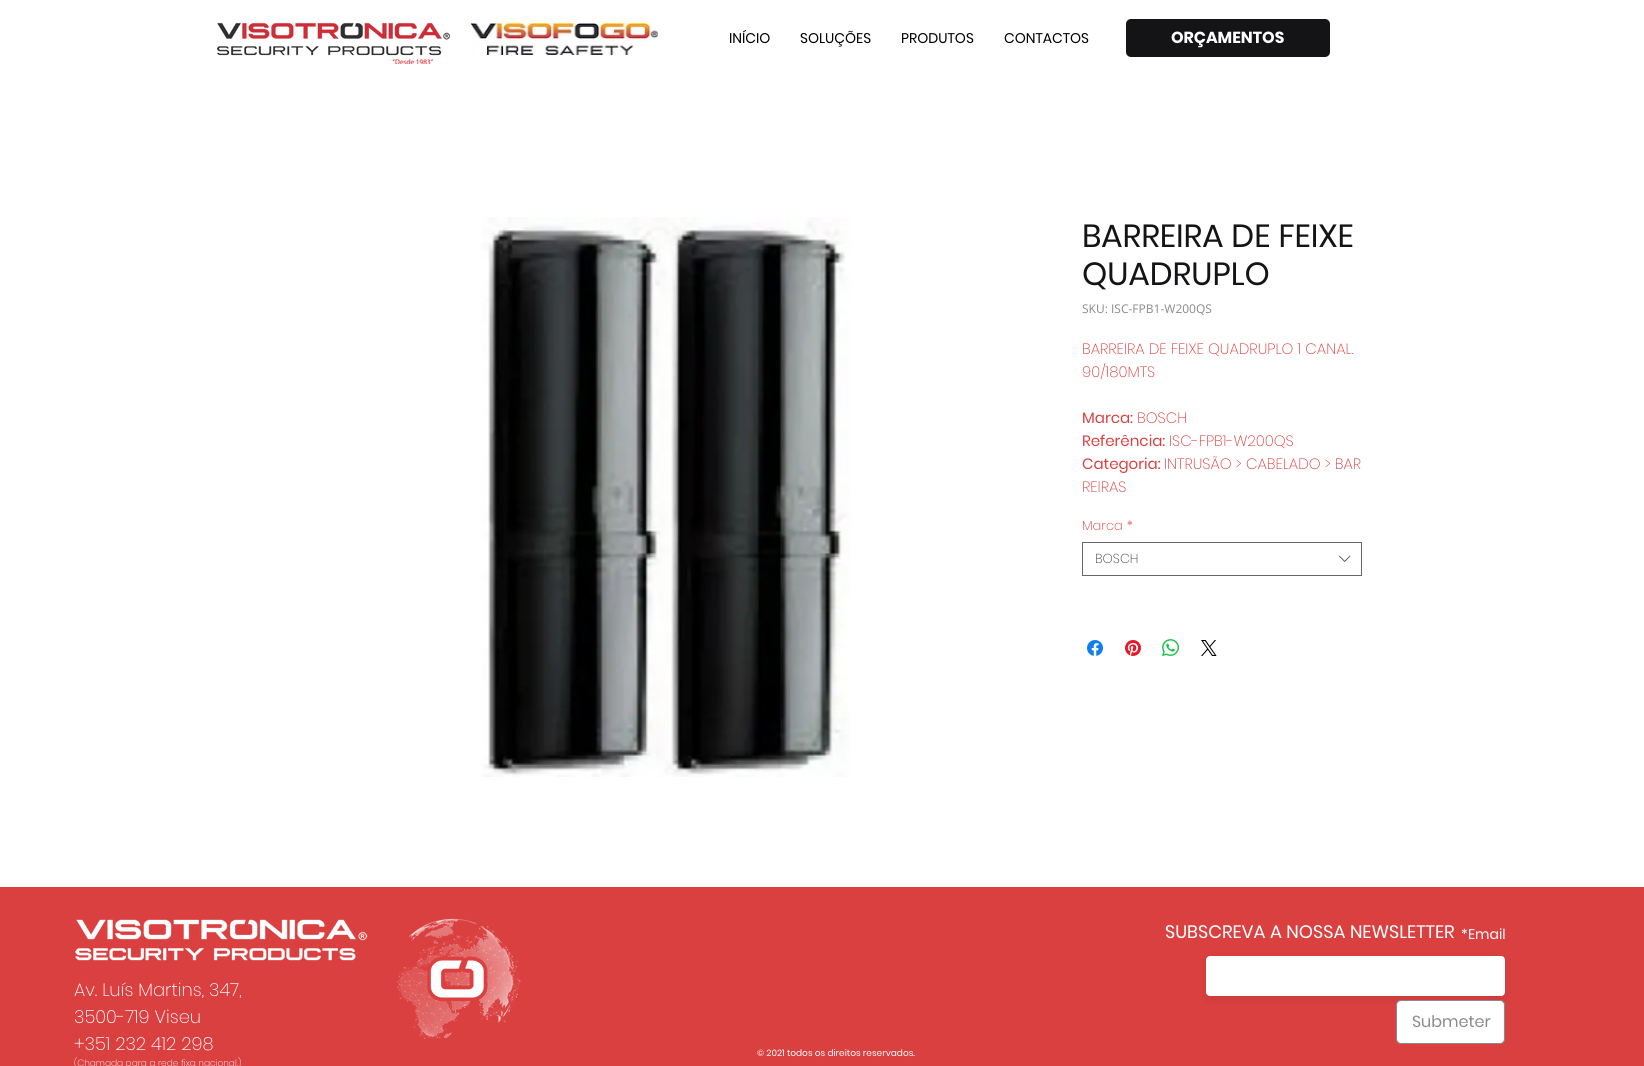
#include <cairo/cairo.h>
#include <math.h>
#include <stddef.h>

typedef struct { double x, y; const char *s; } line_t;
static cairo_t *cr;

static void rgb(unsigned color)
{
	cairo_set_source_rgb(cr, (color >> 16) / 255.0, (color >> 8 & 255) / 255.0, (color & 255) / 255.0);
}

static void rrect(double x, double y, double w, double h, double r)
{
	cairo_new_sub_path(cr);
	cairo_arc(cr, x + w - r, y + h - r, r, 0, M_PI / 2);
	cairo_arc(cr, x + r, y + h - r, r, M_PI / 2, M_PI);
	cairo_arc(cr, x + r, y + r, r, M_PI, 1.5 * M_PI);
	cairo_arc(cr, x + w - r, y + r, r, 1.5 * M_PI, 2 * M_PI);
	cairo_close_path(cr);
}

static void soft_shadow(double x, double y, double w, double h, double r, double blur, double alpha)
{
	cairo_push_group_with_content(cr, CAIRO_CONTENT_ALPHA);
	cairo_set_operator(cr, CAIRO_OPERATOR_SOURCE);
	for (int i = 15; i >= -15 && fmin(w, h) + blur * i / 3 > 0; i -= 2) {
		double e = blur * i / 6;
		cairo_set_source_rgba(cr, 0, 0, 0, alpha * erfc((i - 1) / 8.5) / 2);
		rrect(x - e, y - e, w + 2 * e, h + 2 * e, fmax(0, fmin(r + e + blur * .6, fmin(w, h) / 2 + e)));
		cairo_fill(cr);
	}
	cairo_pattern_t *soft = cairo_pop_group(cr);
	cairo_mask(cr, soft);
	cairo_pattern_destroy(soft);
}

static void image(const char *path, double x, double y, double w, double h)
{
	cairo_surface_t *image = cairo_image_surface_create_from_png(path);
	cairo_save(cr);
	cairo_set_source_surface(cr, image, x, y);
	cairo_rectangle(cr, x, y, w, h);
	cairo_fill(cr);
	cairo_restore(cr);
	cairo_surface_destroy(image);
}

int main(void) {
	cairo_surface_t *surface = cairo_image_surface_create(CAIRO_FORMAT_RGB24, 1644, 1066);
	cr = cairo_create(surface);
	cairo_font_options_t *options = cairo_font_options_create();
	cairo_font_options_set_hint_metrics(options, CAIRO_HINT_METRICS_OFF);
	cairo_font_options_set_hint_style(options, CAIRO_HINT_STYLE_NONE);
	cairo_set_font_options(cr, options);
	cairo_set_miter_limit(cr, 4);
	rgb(0xffffff);
	cairo_paint(cr);
	image("img/1.png", 217, 22, 234, 42);
	image("img/2.png", 471, 23, 187, 32);
	rgb(0x141416);
	rrect(1126, 19, 204, 38, 5);
	cairo_fill(cr);
	image("img/3.png", 481, 217, 370, 560);
	cairo_rectangle(cr, 1082.5, 542.5, 279, 33);
	rgb(0x666666);
	cairo_set_line_width(cr, 1);
	cairo_stroke(cr);
	image("img/4.png", 1339, 555, 12, 7);
	image("img/5.png", 1087, 640, 16, 16);
	image("img/6.png", 1125, 640, 16, 16);
	image("img/7.png", 1162, 639, 17, 17);
	image("img/8.png", 1201, 640, 16, 16);
	rgb(0xdb4040);
	cairo_rectangle(cr, 0, 887, 1644, 179);
	cairo_fill(cr);
	image("img/9.png", 75, 919, 293, 42);
	image("img/10.png", 397, 918, 124, 121);
	rgb(0x000000);
	soft_shadow(1205, 958, 301, 42, 5, 5, 0.08);
	rgb(0xffffff);
	rrect(1206, 956, 299, 40, 4);
	cairo_fill(cr);
	rrect(1396.5, 1000.5, 108, 43, 4.5);
	cairo_fill_preserve(cr);
	rgb(0x8a8a8a);
	cairo_stroke(cr);
	cairo_select_font_face(cr, "Poppins", CAIRO_FONT_SLANT_NORMAL, CAIRO_FONT_WEIGHT_NORMAL);
	cairo_set_font_size(cr, 14);
	rgb(0x000000);
	{
		static const line_t items[] = {
			{729, 43, "INÍCIO"},
			{800, 43, "SOLUÇÕES"},
			{901, 43, "PRODUTOS"},
			{1004, 43, "CONTACTOS"},
		};
		for (size_t i = 0; i < sizeof items / sizeof *items; i++) {
			cairo_move_to(cr, items[i].x, items[i].y);
			cairo_show_text(cr, items[i].s);
		}
	}
	cairo_select_font_face(cr, "Poppins", CAIRO_FONT_SLANT_NORMAL, CAIRO_FONT_WEIGHT_BOLD);
	cairo_set_font_size(cr, 16);
	rgb(0xffffff);
	cairo_move_to(cr, 1171, 43);
	cairo_show_text(cr, "ORÇAMENTOS");
	cairo_select_font_face(cr, "Poppins", CAIRO_FONT_SLANT_NORMAL, CAIRO_FONT_WEIGHT_NORMAL);
	cairo_set_font_size(cr, 32);
	rgb(0x141416);
	cairo_move_to(cr, 1082, 247);
	cairo_show_text(cr, "BARREIRA DE FEIXE");
	cairo_move_to(cr, 1082, 285);
	cairo_show_text(cr, "QUADRUPLO");
	cairo_select_font_face(cr, "Open Sans", CAIRO_FONT_SLANT_NORMAL, CAIRO_FONT_WEIGHT_NORMAL);
	cairo_set_font_size(cr, 12);
	rgb(0x8a8a8a);
	cairo_move_to(cr, 1082, 313);
	cairo_show_text(cr, "SKU: ISC-FPB1-W200QS");
	cairo_select_font_face(cr, "Poppins ExtraLight", CAIRO_FONT_SLANT_NORMAL, CAIRO_FONT_WEIGHT_NORMAL);
	cairo_set_font_size(cr, 15);
	rgb(0xdb4040);
	cairo_move_to(cr, 1082, 354);
	cairo_show_text(cr, "BARREIRA DE FEIXE QUADRUPLO 1 CANAL.");
	cairo_move_to(cr, 1082, 377);
	cairo_show_text(cr, "90/180MTS");
	cairo_select_font_face(cr, "Poppins", CAIRO_FONT_SLANT_NORMAL, CAIRO_FONT_WEIGHT_NORMAL);
	cairo_move_to(cr, 1082, 423);
	cairo_show_text(cr, "Marca:");
	cairo_select_font_face(cr, "Poppins ExtraLight", CAIRO_FONT_SLANT_NORMAL, CAIRO_FONT_WEIGHT_NORMAL);
	cairo_move_to(cr, 1137, 423);
	cairo_show_text(cr, "BOSCH");
	cairo_select_font_face(cr, "Poppins", CAIRO_FONT_SLANT_NORMAL, CAIRO_FONT_WEIGHT_NORMAL);
	cairo_move_to(cr, 1082, 446);
	cairo_show_text(cr, "Referência:");
	cairo_select_font_face(cr, "Poppins ExtraLight", CAIRO_FONT_SLANT_NORMAL, CAIRO_FONT_WEIGHT_NORMAL);
	cairo_move_to(cr, 1169, 446);
	cairo_show_text(cr, "ISC-FPB1-W200QS");
	cairo_select_font_face(cr, "Poppins", CAIRO_FONT_SLANT_NORMAL, CAIRO_FONT_WEIGHT_NORMAL);
	cairo_move_to(cr, 1082, 469);
	cairo_show_text(cr, "Categoria:");
	cairo_select_font_face(cr, "Poppins ExtraLight", CAIRO_FONT_SLANT_NORMAL, CAIRO_FONT_WEIGHT_NORMAL);
	cairo_move_to(cr, 1164, 469);
	cairo_show_text(cr, "INTRUSÃO > CABELADO > BAR");
	cairo_move_to(cr, 1082, 492);
	cairo_show_text(cr, "REIRAS");
	cairo_set_font_size(cr, 13);
	cairo_move_to(cr, 1082, 530);
	cairo_show_text(cr, "Marca");
	cairo_move_to(cr, 1127, 530);
	cairo_show_text(cr, "*");
	rgb(0x444444);
	cairo_move_to(cr, 1095, 563);
	cairo_show_text(cr, "BOSCH");
	cairo_set_font_size(cr, 18);
	rgb(0xffffff);
	{
		static const line_t items[] = {
			{74, 996, "Av. Luís Martins, 347,"},
			{74, 1023, "3500-719 Viseu"},
			{74, 1050, "+351 232 412 298"},
		};
		for (size_t i = 0; i < sizeof items / sizeof *items; i++) {
			cairo_move_to(cr, items[i].x, items[i].y);
			cairo_show_text(cr, items[i].s);
		}
	}
	cairo_set_font_size(cr, 9);
	cairo_move_to(cr, 74, 1066);
	cairo_show_text(cr, "(Chamada para a rede fixa nacional.)");
	cairo_select_font_face(cr, "Poppins", CAIRO_FONT_SLANT_NORMAL, CAIRO_FONT_WEIGHT_NORMAL);
	cairo_move_to(cr, 757, 1056);
	cairo_show_text(cr, "© 2021 todos os direitos reservados.");
	cairo_set_font_size(cr, 18);
	cairo_move_to(cr, 1165, 938);
	cairo_show_text(cr, "SUBSCREVA A NOSSA NEWSLETTER");
	cairo_set_font_size(cr, 14);
	cairo_move_to(cr, 1461, 939);
	cairo_show_text(cr, "*");
	cairo_move_to(cr, 1468, 939);
	cairo_show_text(cr, "Email");
	cairo_set_font_size(cr, 16);
	rgb(0x8a8a8a);
	cairo_move_to(cr, 1412, 1027);
	cairo_show_text(cr, "Submeter");
	cairo_surface_write_to_png(surface, "page.png");
	cairo_font_options_destroy(options);
	cairo_destroy(cr);
	cairo_surface_destroy(surface);
	return 0;
}
